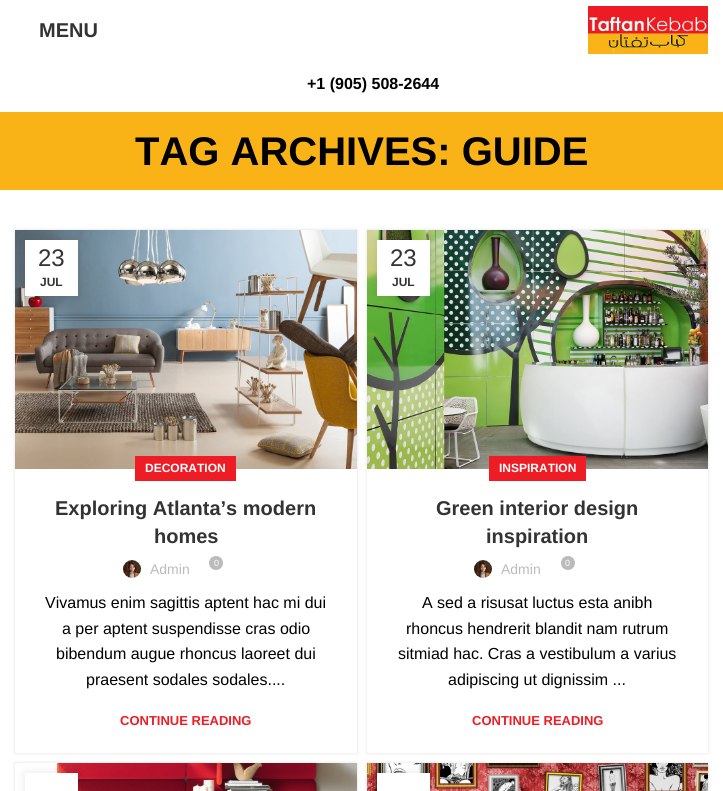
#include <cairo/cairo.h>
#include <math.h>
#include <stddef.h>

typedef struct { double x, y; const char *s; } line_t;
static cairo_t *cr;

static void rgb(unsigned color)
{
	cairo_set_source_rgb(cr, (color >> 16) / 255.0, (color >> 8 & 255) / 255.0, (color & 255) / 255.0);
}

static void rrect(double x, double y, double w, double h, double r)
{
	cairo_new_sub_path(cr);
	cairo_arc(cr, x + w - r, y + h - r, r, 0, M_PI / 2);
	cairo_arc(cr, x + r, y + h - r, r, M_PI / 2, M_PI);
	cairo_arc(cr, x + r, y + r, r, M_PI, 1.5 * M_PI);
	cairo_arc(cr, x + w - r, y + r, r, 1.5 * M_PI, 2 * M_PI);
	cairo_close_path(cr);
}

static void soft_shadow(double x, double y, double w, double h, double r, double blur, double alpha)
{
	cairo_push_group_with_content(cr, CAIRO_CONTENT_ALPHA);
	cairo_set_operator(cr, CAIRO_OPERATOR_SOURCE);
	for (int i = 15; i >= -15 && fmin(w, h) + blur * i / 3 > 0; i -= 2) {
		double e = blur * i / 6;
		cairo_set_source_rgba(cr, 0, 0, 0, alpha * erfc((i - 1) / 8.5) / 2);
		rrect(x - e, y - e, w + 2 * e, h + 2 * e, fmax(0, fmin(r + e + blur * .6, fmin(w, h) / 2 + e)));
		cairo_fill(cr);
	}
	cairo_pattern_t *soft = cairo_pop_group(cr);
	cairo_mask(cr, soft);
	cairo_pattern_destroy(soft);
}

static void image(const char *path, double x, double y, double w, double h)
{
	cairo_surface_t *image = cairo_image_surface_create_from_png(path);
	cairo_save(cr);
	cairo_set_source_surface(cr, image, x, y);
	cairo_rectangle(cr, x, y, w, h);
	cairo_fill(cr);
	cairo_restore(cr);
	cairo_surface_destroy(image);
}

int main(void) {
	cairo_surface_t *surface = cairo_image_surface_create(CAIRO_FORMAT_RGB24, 723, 791);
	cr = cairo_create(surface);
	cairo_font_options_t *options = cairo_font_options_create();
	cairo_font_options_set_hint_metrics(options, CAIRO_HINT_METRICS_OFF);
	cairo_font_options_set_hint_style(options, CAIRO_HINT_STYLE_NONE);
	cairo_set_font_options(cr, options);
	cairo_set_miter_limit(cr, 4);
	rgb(0xffffff);
	cairo_paint(cr);
	image("img/1.png", 588, 6, 120, 48);
	rgb(0xf9b317);
	cairo_rectangle(cr, 0, 112, 723, 78);
	cairo_fill(cr);
	cairo_save(cr);
	cairo_set_fill_rule(cr, CAIRO_FILL_RULE_EVEN_ODD);
	cairo_new_path(cr);
	cairo_move_to(cr, 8, 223);
	cairo_line_to(cr, 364, 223);
	cairo_line_to(cr, 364, 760);
	cairo_line_to(cr, 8, 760);
	cairo_close_path(cr);
	cairo_move_to(cr, 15, 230);
	cairo_line_to(cr, 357, 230);
	cairo_line_to(cr, 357, 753);
	cairo_line_to(cr, 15, 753);
	cairo_close_path(cr);
	cairo_clip(cr);
	rgb(0x000000);
	soft_shadow(15, 230, 342, 523, 0, 2, 0.12);
	cairo_restore(cr);
	image("img/2.png", 15, 230, 342, 239);
	rgb(0x000000);
	soft_shadow(25, 240, 53, 56, 0, 4.5, 0.1);
	rgb(0xffffff);
	cairo_rectangle(cr, 25, 240, 53, 56);
	cairo_fill(cr);
	rgb(0xee1d25);
	cairo_rectangle(cr, 135, 456, 101, 25);
	cairo_fill(cr);
	image("img/3.png", 123, 560, 18, 18);
	rgb(0xbbbbbb);
	cairo_arc(cr, 216, 563, 7, 0, 2 * M_PI);
	cairo_fill(cr);
	cairo_save(cr);
	cairo_set_fill_rule(cr, CAIRO_FILL_RULE_EVEN_ODD);
	cairo_new_path(cr);
	cairo_move_to(cr, 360, 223);
	cairo_line_to(cr, 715, 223);
	cairo_line_to(cr, 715, 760);
	cairo_line_to(cr, 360, 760);
	cairo_close_path(cr);
	cairo_move_to(cr, 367, 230);
	cairo_line_to(cr, 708, 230);
	cairo_line_to(cr, 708, 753);
	cairo_line_to(cr, 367, 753);
	cairo_close_path(cr);
	cairo_clip(cr);
	rgb(0x000000);
	soft_shadow(367, 230, 341, 523, 0, 2, 0.12);
	cairo_restore(cr);
	image("img/4.png", 367, 230, 341, 239);
	rgb(0x000000);
	soft_shadow(377, 240, 53, 56, 0, 4.5, 0.1);
	rgb(0xffffff);
	cairo_rectangle(cr, 377, 240, 53, 56);
	cairo_fill(cr);
	rgb(0xee1d25);
	cairo_rectangle(cr, 489, 456, 97, 25);
	cairo_fill(cr);
	image("img/5.png", 474, 560, 18, 18);
	rgb(0xbbbbbb);
	cairo_arc(cr, 568, 563, 7, 0, 2 * M_PI);
	cairo_fill(cr);
	cairo_save(cr);
	cairo_set_fill_rule(cr, CAIRO_FILL_RULE_EVEN_ODD);
	cairo_new_path(cr);
	cairo_move_to(cr, 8, 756);
	cairo_line_to(cr, 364, 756);
	cairo_line_to(cr, 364, 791);
	cairo_line_to(cr, 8, 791);
	cairo_close_path(cr);
	cairo_move_to(cr, 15, 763);
	cairo_line_to(cr, 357, 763);
	cairo_line_to(cr, 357, 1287);
	cairo_line_to(cr, 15, 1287);
	cairo_close_path(cr);
	cairo_clip(cr);
	rgb(0x000000);
	soft_shadow(15, 763, 342, 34, 0, 2, 0.12);
	cairo_restore(cr);
	image("img/6.png", 55, 763, 302, 28);
	rgb(0x000000);
	soft_shadow(25, 773, 53, 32, 0, 4.5, 0.1);
	rgb(0xffffff);
	cairo_rectangle(cr, 25, 773, 53, 18);
	cairo_fill(cr);
	rgb(0x000000);
	soft_shadow(367, 763, 341, 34, 0, 2, 0.12);
	image("img/7.png", 367, 763, 341, 28);
	soft_shadow(377, 773, 53, 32, 0, 4.5, 0.1);
	rgb(0xffffff);
	cairo_rectangle(cr, 377, 773, 53, 18);
	cairo_fill(cr);
	cairo_select_font_face(cr, "Liberation Sans", CAIRO_FONT_SLANT_NORMAL, CAIRO_FONT_WEIGHT_BOLD);
	cairo_set_font_size(cr, 20);
	rgb(0x333333);
	cairo_move_to(cr, 39, 37);
	cairo_show_text(cr, "MENU");
	cairo_set_font_size(cr, 16);
	rgb(0x000000);
	cairo_move_to(cr, 307, 89);
	cairo_show_text(cr, "+1 (905) 508-2644");
	cairo_set_font_size(cr, 40);
	cairo_move_to(cr, 135, 165);
	cairo_show_text(cr, "TAG ARCHIVES: GUIDE");
	cairo_select_font_face(cr, "Liberation Sans", CAIRO_FONT_SLANT_NORMAL, CAIRO_FONT_WEIGHT_NORMAL);
	cairo_set_font_size(cr, 24);
	rgb(0x333333);
	cairo_move_to(cr, 38, 266);
	cairo_show_text(cr, "23");
	cairo_select_font_face(cr, "Liberation Sans", CAIRO_FONT_SLANT_NORMAL, CAIRO_FONT_WEIGHT_BOLD);
	cairo_set_font_size(cr, 12);
	cairo_move_to(cr, 40, 286);
	cairo_show_text(cr, "JUL");
	rgb(0xffffff);
	cairo_move_to(cr, 145, 472);
	cairo_show_text(cr, "DECORATION");
	cairo_set_font_size(cr, 20);
	rgb(0x333333);
	cairo_move_to(cr, 55, 515);
	cairo_show_text(cr, "Exploring Atlanta’s modern");
	cairo_move_to(cr, 154, 543);
	cairo_show_text(cr, "homes");
	cairo_select_font_face(cr, "Liberation Sans", CAIRO_FONT_SLANT_NORMAL, CAIRO_FONT_WEIGHT_NORMAL);
	cairo_set_font_size(cr, 14);
	rgb(0xbbbbbb);
	cairo_move_to(cr, 150, 574);
	cairo_show_text(cr, "Admin");
	cairo_set_font_size(cr, 9);
	rgb(0xffffff);
	cairo_move_to(cr, 214, 566);
	cairo_show_text(cr, "0");
	cairo_set_font_size(cr, 16);
	rgb(0x000000);
	{
		static const line_t items[] = {
			{45, 608, "Vivamus enim sagittis aptent hac mi dui"},
			{62, 634, "a per aptent suspendisse cras odio"},
			{56, 659, "bibendum augue rhoncus laoreet dui"},
			{86, 685, "praesent sodales sodales...."},
		};
		for (size_t i = 0; i < sizeof items / sizeof *items; i++) {
			cairo_move_to(cr, items[i].x, items[i].y);
			cairo_show_text(cr, items[i].s);
		}
	}
	cairo_select_font_face(cr, "Liberation Sans", CAIRO_FONT_SLANT_NORMAL, CAIRO_FONT_WEIGHT_BOLD);
	cairo_set_font_size(cr, 13);
	rgb(0xee1d25);
	cairo_move_to(cr, 120, 725);
	cairo_show_text(cr, "CONTINUE READING");
	cairo_select_font_face(cr, "Liberation Sans", CAIRO_FONT_SLANT_NORMAL, CAIRO_FONT_WEIGHT_NORMAL);
	cairo_set_font_size(cr, 24);
	rgb(0x333333);
	cairo_move_to(cr, 390, 266);
	cairo_show_text(cr, "23");
	cairo_select_font_face(cr, "Liberation Sans", CAIRO_FONT_SLANT_NORMAL, CAIRO_FONT_WEIGHT_BOLD);
	cairo_set_font_size(cr, 12);
	cairo_move_to(cr, 392, 286);
	cairo_show_text(cr, "JUL");
	rgb(0xffffff);
	cairo_move_to(cr, 499, 472);
	cairo_show_text(cr, "INSPIRATION");
	cairo_set_font_size(cr, 20);
	rgb(0x333333);
	cairo_move_to(cr, 436, 515);
	cairo_show_text(cr, "Green interior design");
	cairo_move_to(cr, 486, 543);
	cairo_show_text(cr, "inspiration");
	cairo_select_font_face(cr, "Liberation Sans", CAIRO_FONT_SLANT_NORMAL, CAIRO_FONT_WEIGHT_NORMAL);
	cairo_set_font_size(cr, 14);
	rgb(0xbbbbbb);
	cairo_move_to(cr, 501, 574);
	cairo_show_text(cr, "Admin");
	cairo_set_font_size(cr, 9);
	rgb(0xffffff);
	cairo_move_to(cr, 565, 566);
	cairo_show_text(cr, "0");
	cairo_set_font_size(cr, 16);
	rgb(0x000000);
	{
		static const line_t items[] = {
			{422, 608, "A sed a risusat luctus esta anibh"},
			{406, 634, "rhoncus hendrerit blandit nam rutrum"},
			{398, 659, "sitmiad hac. Cras a vestibulum a varius"},
			{448, 685, "adipiscing ut dignissim ..."},
		};
		for (size_t i = 0; i < sizeof items / sizeof *items; i++) {
			cairo_move_to(cr, items[i].x, items[i].y);
			cairo_show_text(cr, items[i].s);
		}
	}
	cairo_select_font_face(cr, "Liberation Sans", CAIRO_FONT_SLANT_NORMAL, CAIRO_FONT_WEIGHT_BOLD);
	cairo_set_font_size(cr, 13);
	rgb(0xee1d25);
	cairo_move_to(cr, 472, 725);
	cairo_show_text(cr, "CONTINUE READING");
	cairo_surface_write_to_png(surface, "page.png");
	cairo_font_options_destroy(options);
	cairo_destroy(cr);
	cairo_surface_destroy(surface);
	return 0;
}
